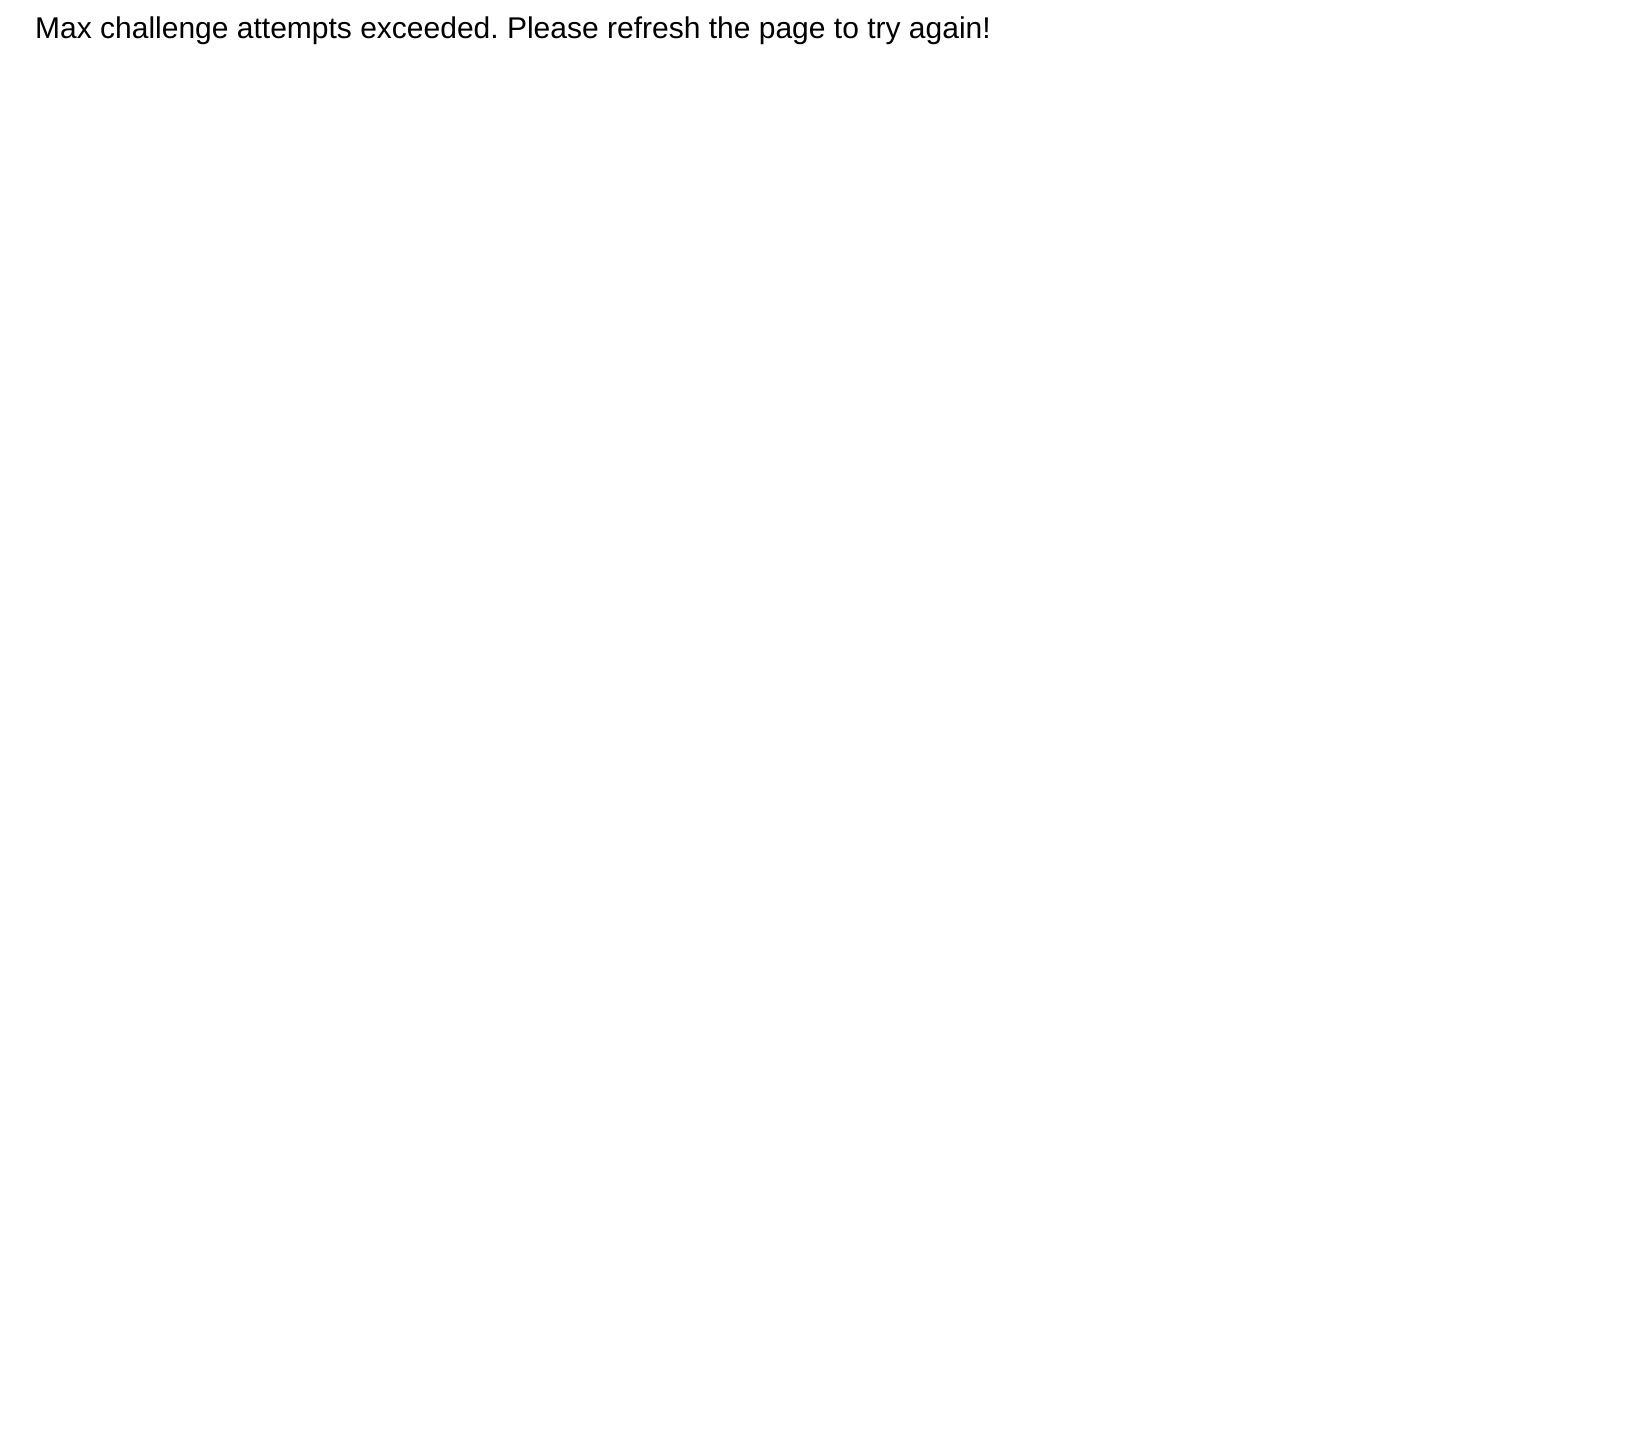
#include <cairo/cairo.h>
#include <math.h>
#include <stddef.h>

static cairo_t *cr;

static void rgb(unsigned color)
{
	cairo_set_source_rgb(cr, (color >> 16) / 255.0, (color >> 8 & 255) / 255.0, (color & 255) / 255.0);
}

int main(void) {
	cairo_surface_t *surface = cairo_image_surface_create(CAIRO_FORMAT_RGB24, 1641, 1440);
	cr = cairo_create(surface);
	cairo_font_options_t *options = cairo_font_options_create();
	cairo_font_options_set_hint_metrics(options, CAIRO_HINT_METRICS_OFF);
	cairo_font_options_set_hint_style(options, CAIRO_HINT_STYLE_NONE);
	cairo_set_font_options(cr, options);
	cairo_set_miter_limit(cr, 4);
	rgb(0xffffff);
	cairo_paint(cr);
	cairo_select_font_face(cr, "Liberation Sans", CAIRO_FONT_SLANT_NORMAL, CAIRO_FONT_WEIGHT_NORMAL);
	cairo_set_font_size(cr, 30);
	rgb(0x000000);
	cairo_move_to(cr, 35, 38);
	cairo_show_text(cr, "Max challenge attempts exceeded. Please refresh the page to try again!");
	cairo_surface_write_to_png(surface, "page.png");
	cairo_font_options_destroy(options);
	cairo_destroy(cr);
	cairo_surface_destroy(surface);
	return 0;
}
